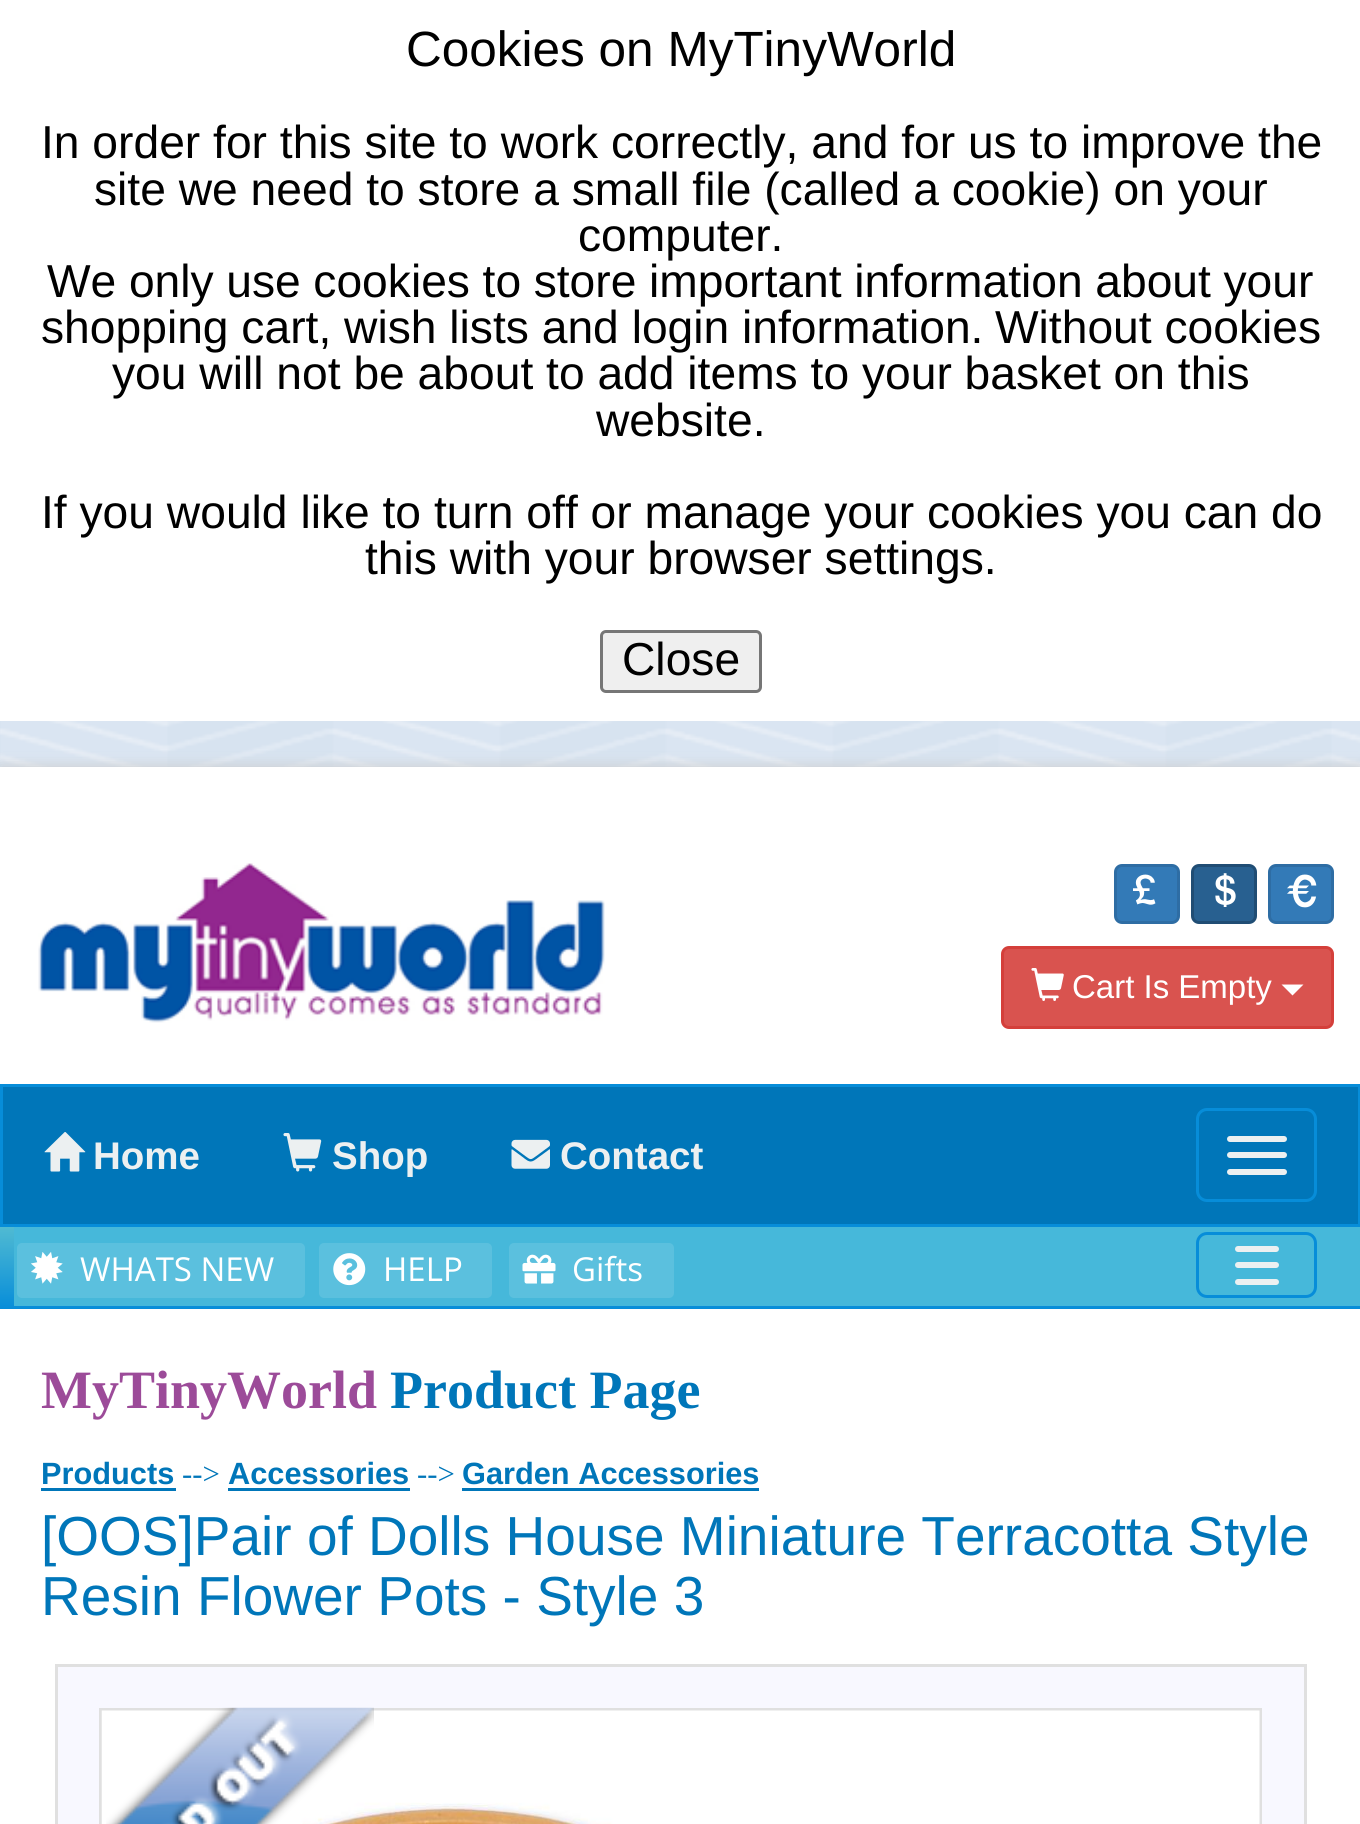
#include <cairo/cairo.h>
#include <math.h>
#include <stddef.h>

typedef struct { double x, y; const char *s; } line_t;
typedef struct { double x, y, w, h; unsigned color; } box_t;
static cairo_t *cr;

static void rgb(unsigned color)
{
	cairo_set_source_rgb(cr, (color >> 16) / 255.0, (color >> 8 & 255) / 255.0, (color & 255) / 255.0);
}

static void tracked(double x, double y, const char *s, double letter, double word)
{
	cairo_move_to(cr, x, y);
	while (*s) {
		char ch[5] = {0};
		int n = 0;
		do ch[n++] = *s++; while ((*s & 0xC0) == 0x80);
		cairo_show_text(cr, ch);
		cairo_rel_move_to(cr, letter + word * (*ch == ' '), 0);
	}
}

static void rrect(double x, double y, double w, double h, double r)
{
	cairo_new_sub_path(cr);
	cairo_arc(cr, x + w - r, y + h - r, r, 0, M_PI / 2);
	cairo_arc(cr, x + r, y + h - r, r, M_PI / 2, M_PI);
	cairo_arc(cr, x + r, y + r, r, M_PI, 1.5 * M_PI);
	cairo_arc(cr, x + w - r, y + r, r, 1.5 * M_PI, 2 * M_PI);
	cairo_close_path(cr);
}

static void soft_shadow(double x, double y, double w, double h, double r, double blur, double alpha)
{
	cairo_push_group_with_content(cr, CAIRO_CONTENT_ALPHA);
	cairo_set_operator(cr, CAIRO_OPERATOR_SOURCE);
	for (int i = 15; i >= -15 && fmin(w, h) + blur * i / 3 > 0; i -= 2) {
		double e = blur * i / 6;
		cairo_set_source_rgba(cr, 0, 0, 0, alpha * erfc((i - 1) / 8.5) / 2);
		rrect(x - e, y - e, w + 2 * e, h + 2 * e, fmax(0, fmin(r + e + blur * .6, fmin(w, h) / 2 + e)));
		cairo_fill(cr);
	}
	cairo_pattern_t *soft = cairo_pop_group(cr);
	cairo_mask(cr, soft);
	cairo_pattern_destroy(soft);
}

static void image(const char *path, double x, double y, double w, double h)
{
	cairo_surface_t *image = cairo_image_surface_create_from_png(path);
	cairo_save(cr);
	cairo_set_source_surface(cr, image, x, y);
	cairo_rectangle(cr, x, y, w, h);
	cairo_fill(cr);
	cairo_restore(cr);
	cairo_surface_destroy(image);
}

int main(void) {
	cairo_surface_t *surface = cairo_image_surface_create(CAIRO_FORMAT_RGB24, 1360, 1824);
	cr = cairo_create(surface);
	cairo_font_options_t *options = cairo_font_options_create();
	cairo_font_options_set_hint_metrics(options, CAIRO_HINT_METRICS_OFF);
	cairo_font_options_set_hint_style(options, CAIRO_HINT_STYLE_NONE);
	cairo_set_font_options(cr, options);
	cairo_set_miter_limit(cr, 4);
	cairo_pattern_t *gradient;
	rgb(0xffffff);
	cairo_paint(cr);
	image("img/1.png", 0, 721, 1360, 46);
	rgb(0xefefef);
	rrect(601.5, 631.5, 159, 60, 4.5);
	cairo_fill_preserve(cr);
	rgb(0x767676);
	cairo_set_line_width(cr, 3);
	cairo_stroke(cr);
	rgb(0xcccccc);
	soft_shadow(0, 767, 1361, 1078, 0, 7, 1);
	rgb(0xffffff);
	cairo_rectangle(cr, 0, 767, 1360, 1057);
	cairo_fill(cr);
	image("img/2.png", 38, 863, 567, 160);
	rgb(0x337ab7);
	rrect(1115.5, 865.5, 63, 57, 6.5);
	cairo_fill_preserve(cr);
	rgb(0x2e6da4);
	cairo_stroke(cr);
	image("img/3.png", 1133, 874, 23, 31);
	rgb(0x286090);
	rrect(1192.5, 865.5, 63, 57, 6.5);
	cairo_fill_preserve(cr);
	rgb(0x204d74);
	cairo_stroke(cr);
	image("img/4.png", 1215, 873, 21, 34);
	rgb(0x337ab7);
	rrect(1269.5, 865.5, 63, 57, 6.5);
	cairo_fill_preserve(cr);
	rgb(0x2e6da4);
	cairo_stroke(cr);
	image("img/5.png", 1287, 874, 30, 34);
	rgb(0xd9534f);
	rrect(1002.5, 947.5, 330, 80, 6.5);
	cairo_fill_preserve(cr);
	rgb(0xd43f3a);
	cairo_stroke(cr);
	image("img/6.png", 1031, 968, 33, 33);
	rgb(0xffffff);
	cairo_new_path(cr);
	cairo_move_to(cr, 1281.5, 984.5);
	cairo_line_to(cr, 1303.5, 984.5);
	cairo_line_to(cr, 1292.5, 995.5);
	cairo_close_path(cr);
	cairo_fill(cr);
	rgb(0x0076b9);
	cairo_rectangle(cr, 1.5, 1085.5, 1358, 140);
	cairo_fill_preserve(cr);
	rgb(0x078dd9);
	cairo_stroke(cr);
	image("img/7.png", 44, 1132, 42, 40);
	image("img/8.png", 283, 1133, 39, 39);
	image("img/9.png", 511, 1139, 39, 30);
	rrect(1197.5, 1109.5, 118, 91, 9.5);
	cairo_stroke(cr);
	rgb(0xecf0f1);
	rrect(1227, 1136, 60, 6, 3);
	cairo_fill(cr);
	rrect(1227, 1152, 60, 6, 3);
	cairo_fill(cr);
	rrect(1227, 1169, 60, 6, 3);
	cairo_fill(cr);
	gradient = cairo_pattern_create_linear(681, 1226, 681, 1309);
	cairo_pattern_add_color_stop_rgba(gradient, 0, 0.318, 0.733, 0.824, 1);
	cairo_pattern_add_color_stop_rgba(gradient, 1, 0.027, 0.553, 0.851, 1);
	cairo_set_source(cr, gradient);
	cairo_pattern_destroy(gradient);
	cairo_rectangle(cr, 0, 1227, 1360, 82);
	cairo_fill(cr);
	rgb(0x46b8da);
	cairo_rectangle(cr, 14, 1227, 1346, 79);
	cairo_fill(cr);
	rgb(0x5bc0de);
	rrect(15.5, 1241.5, 291, 58, 6.5);
	cairo_fill_preserve(cr);
	rgb(0x46b8da);
	cairo_stroke(cr);
	image("img/10.png", 31, 1252, 32, 32);
	rgb(0x5bc0de);
	rrect(317.5, 1241.5, 176, 58, 6.5);
	cairo_fill_preserve(cr);
	rgb(0x46b8da);
	cairo_stroke(cr);
	image("img/11.png", 333, 1253, 33, 33);
	rgb(0x5bc0de);
	rrect(507.5, 1241.5, 168, 58, 6.5);
	cairo_fill_preserve(cr);
	rgb(0x46b8da);
	cairo_stroke(cr);
	image("img/12.png", 522, 1254, 34, 30);
	rrect(1197.5, 1233.5, 118, 63, 9.5);
	rgb(0x078dd9);
	cairo_stroke(cr);
	rgb(0xecf0f1);
	rrect(1235, 1246, 44, 6, 3);
	cairo_fill(cr);
	rrect(1235, 1262, 44, 6, 3);
	cairo_fill(cr);
	rrect(1235, 1279, 44, 6, 3);
	cairo_fill(cr);
	{
		static const box_t items[] = {
			{41, 1488, 135, 3, 0x0076b9},
			{228, 1488, 182, 3, 0x0076b9},
			{462, 1488, 297, 3, 0x0076b9},
			{58, 1667, 1246, 157, 0xf8f8ff},
			{55, 1664, 1251, 3, 0xe0e0e0},
			{1304, 1664, 3, 160, 0xe0e0e0},
			{55, 1664, 3, 160, 0xe0e0e0},
		};
		for (size_t i = 0; i < sizeof items / sizeof *items; i++) {
			rgb(items[i].color);
			cairo_rectangle(cr, items[i].x, items[i].y, items[i].w, items[i].h);
			cairo_fill(cr);
		}
	}
	cairo_rectangle(cr, 100.5, 1709.5, 1160, 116);
	cairo_stroke(cr);
	image("img/14.png", 101, 1710, 1159, 114);
	image("img/13.png", 106, 1707, 268, 117);
	cairo_select_font_face(cr, "Liberation Sans", CAIRO_FONT_SLANT_NORMAL, CAIRO_FONT_WEIGHT_NORMAL);
	cairo_set_font_size(cr, 49.5);
	rgb(0x000000);
	cairo_move_to(cr, 406, 66);
	cairo_show_text(cr, "Cookies on MyTinyWorld");
	cairo_set_font_size(cr, 46.2);
	{
		static const line_t items[] = {
			{41, 158, "In order for this site to work correctly, and for us to improve the"},
			{94, 205, "site we need to store a small file (called a cookie) on your"},
			{578, 251, "computer."},
		};
		for (size_t i = 0; i < sizeof items / sizeof *items; i++) {
			cairo_move_to(cr, items[i].x, items[i].y);
			cairo_show_text(cr, items[i].s);
		}
	}
	tracked(47, 297, "We only use cookies to store important information about your", 0, -0.25);
	{
		static const line_t items[] = {
			{41, 343, "shopping cart, wish lists and login information."},
			{995, 343, "Without cookies"},
			{112, 389, "you will not be about to add items to your basket on this"},
			{596, 436, "website."},
			{41, 528, "If you would like to turn off or manage your cookies you can do"},
			{365, 574, "this with your browser settings."},
			{622, 675, "Close"},
		};
		for (size_t i = 0; i < sizeof items / sizeof *items; i++) {
			cairo_move_to(cr, items[i].x, items[i].y);
			cairo_show_text(cr, items[i].s);
		}
	}
	cairo_set_font_size(cr, 33);
	rgb(0xffffff);
	cairo_move_to(cr, 1072, 998);
	cairo_show_text(cr, "Cart Is Empty");
	cairo_select_font_face(cr, "Liberation Sans", CAIRO_FONT_SLANT_NORMAL, CAIRO_FONT_WEIGHT_BOLD);
	cairo_set_font_size(cr, 38.5);
	rgb(0xecf0f1);
	{
		static const line_t items[] = {
			{93, 1169, "Home"},
			{332, 1169, "Shop"},
			{560, 1169, "Contact"},
		};
		for (size_t i = 0; i < sizeof items / sizeof *items; i++) {
			cairo_move_to(cr, items[i].x, items[i].y);
			cairo_show_text(cr, items[i].s);
		}
	}
	cairo_select_font_face(cr, "Open Sans", CAIRO_FONT_SLANT_NORMAL, CAIRO_FONT_WEIGHT_NORMAL);
	cairo_set_font_size(cr, 33);
	rgb(0xffffff);
	{
		static const line_t items[] = {
			{80, 1281, "WHATS NEW"},
			{383, 1281, "HELP"},
			{572, 1281, "Gifts"},
		};
		for (size_t i = 0; i < sizeof items / sizeof *items; i++) {
			cairo_move_to(cr, items[i].x, items[i].y);
			cairo_show_text(cr, items[i].s);
		}
	}
	cairo_select_font_face(cr, "Liberation Serif", CAIRO_FONT_SLANT_NORMAL, CAIRO_FONT_WEIGHT_BOLD);
	cairo_set_font_size(cr, 54);
	rgb(0x9c4b99);
	cairo_move_to(cr, 41, 1408);
	cairo_show_text(cr, "MyTinyWorld");
	rgb(0x0076b9);
	cairo_move_to(cr, 390, 1408);
	cairo_show_text(cr, "Product Page");
	cairo_select_font_face(cr, "Liberation Sans", CAIRO_FONT_SLANT_NORMAL, CAIRO_FONT_WEIGHT_BOLD);
	cairo_set_font_size(cr, 30.75);
	cairo_move_to(cr, 41, 1484);
	cairo_show_text(cr, "Products");
	cairo_select_font_face(cr, "Liberation Serif", CAIRO_FONT_SLANT_NORMAL, CAIRO_FONT_WEIGHT_NORMAL);
	cairo_move_to(cr, 182, 1484);
	cairo_show_text(cr, "-->");
	cairo_select_font_face(cr, "Liberation Sans", CAIRO_FONT_SLANT_NORMAL, CAIRO_FONT_WEIGHT_BOLD);
	cairo_move_to(cr, 228, 1484);
	cairo_show_text(cr, "Accessories");
	cairo_select_font_face(cr, "Liberation Serif", CAIRO_FONT_SLANT_NORMAL, CAIRO_FONT_WEIGHT_NORMAL);
	cairo_move_to(cr, 417, 1484);
	cairo_show_text(cr, "-->");
	cairo_select_font_face(cr, "Liberation Sans", CAIRO_FONT_SLANT_NORMAL, CAIRO_FONT_WEIGHT_BOLD);
	cairo_move_to(cr, 462, 1484);
	cairo_show_text(cr, "Garden Accessories");
	cairo_select_font_face(cr, "Liberation Sans", CAIRO_FONT_SLANT_NORMAL, CAIRO_FONT_WEIGHT_NORMAL);
	cairo_set_font_size(cr, 55);
	cairo_move_to(cr, 41, 1555);
	cairo_show_text(cr, "[OOS]Pair of Dolls House Miniature Terracotta Style");
	cairo_move_to(cr, 41, 1615);
	cairo_show_text(cr, "Resin Flower Pots - Style 3");
	cairo_surface_write_to_png(surface, "page.png");
	cairo_font_options_destroy(options);
	cairo_destroy(cr);
	cairo_surface_destroy(surface);
	return 0;
}
